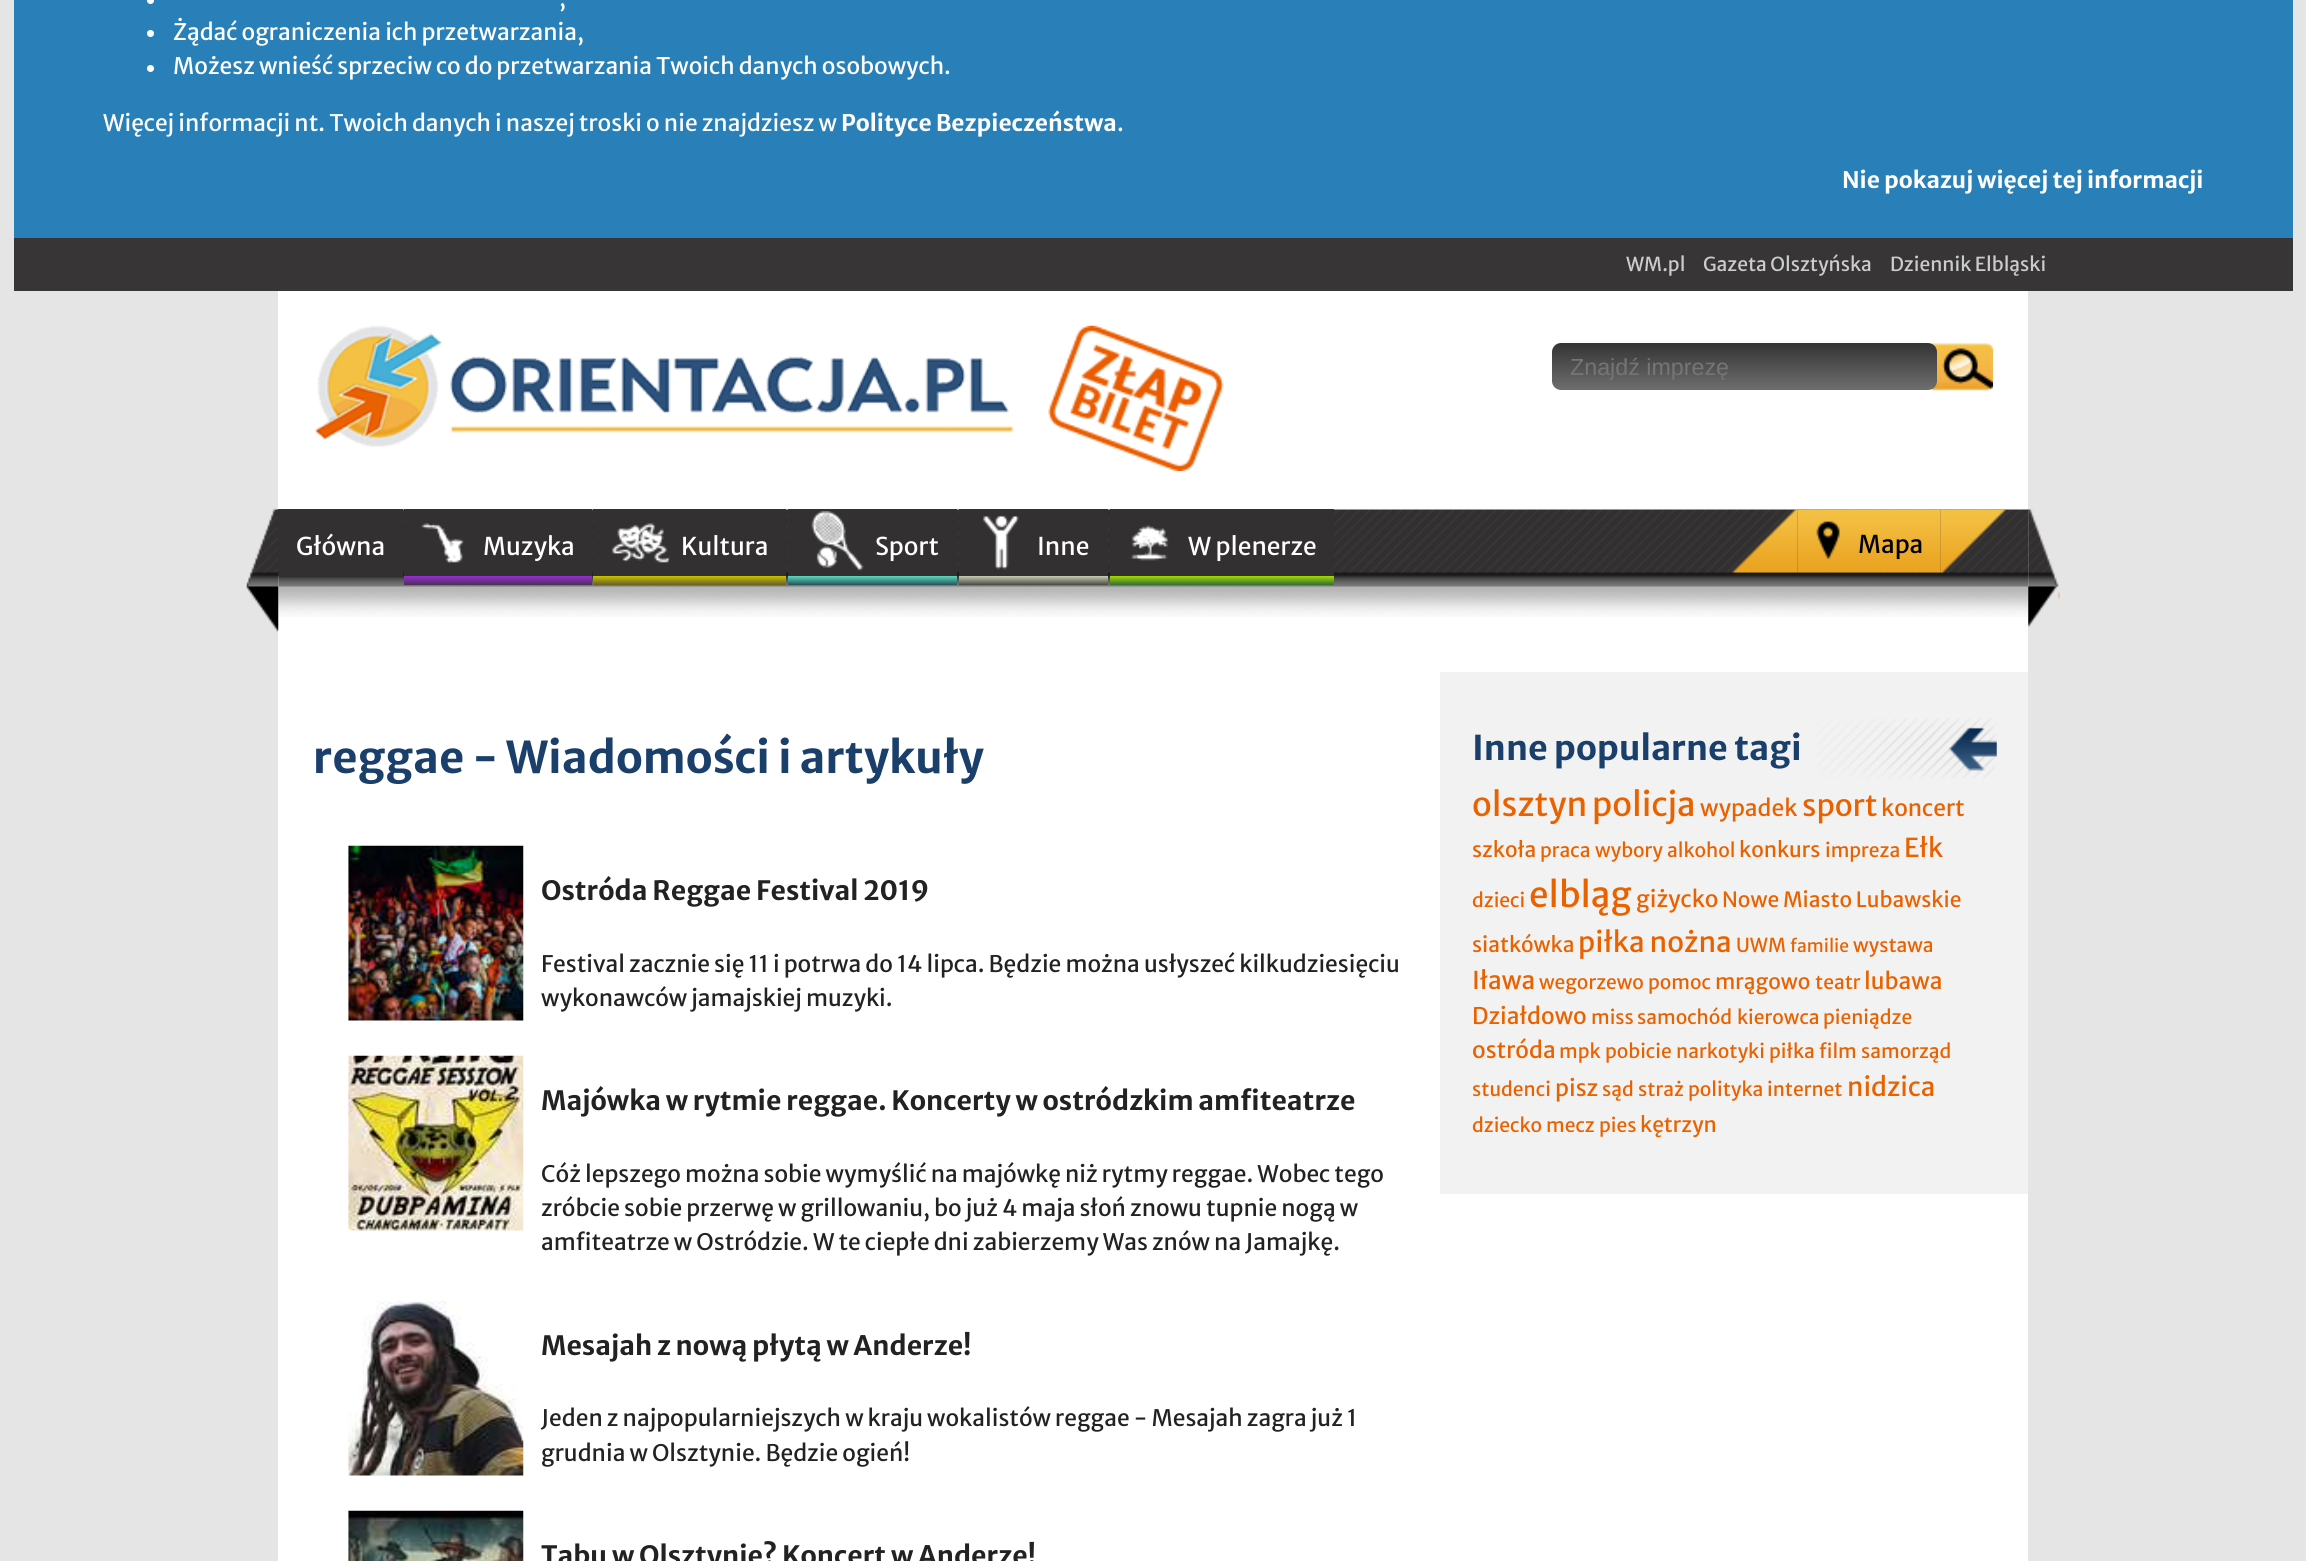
#include <cairo/cairo.h>
#include <math.h>
#include <stddef.h>

typedef struct { double x, y; const char *s; } line_t;
static cairo_t *cr;

static void rgb(unsigned color)
{
	cairo_set_source_rgb(cr, (color >> 16) / 255.0, (color >> 8 & 255) / 255.0, (color & 255) / 255.0);
}

static void rrect(double x, double y, double w, double h, double r)
{
	cairo_new_sub_path(cr);
	cairo_arc(cr, x + w - r, y + h - r, r, 0, M_PI / 2);
	cairo_arc(cr, x + r, y + h - r, r, M_PI / 2, M_PI);
	cairo_arc(cr, x + r, y + r, r, M_PI, 1.5 * M_PI);
	cairo_arc(cr, x + w - r, y + r, r, 1.5 * M_PI, 2 * M_PI);
	cairo_close_path(cr);
}

static void image(const char *path, double x, double y, double w, double h)
{
	cairo_surface_t *image = cairo_image_surface_create_from_png(path);
	cairo_save(cr);
	cairo_set_source_surface(cr, image, x, y);
	cairo_rectangle(cr, x, y, w, h);
	cairo_fill(cr);
	cairo_restore(cr);
	cairo_surface_destroy(image);
}

int main(void) {
	cairo_surface_t *surface = cairo_image_surface_create(CAIRO_FORMAT_RGB24, 2306, 1561);
	cr = cairo_create(surface);
	cairo_font_options_t *options = cairo_font_options_create();
	cairo_font_options_set_hint_metrics(options, CAIRO_HINT_METRICS_OFF);
	cairo_font_options_set_hint_style(options, CAIRO_HINT_STYLE_NONE);
	cairo_set_font_options(cr, options);
	cairo_set_miter_limit(cr, 4);
	cairo_pattern_t *gradient;
	rgb(0xe5e5e5);
	cairo_paint(cr);
	rgb(0x2980b9);
	cairo_rectangle(cr, 14, 0, 2279, 238);
	cairo_fill(cr);
	rgb(0xffffff);
	cairo_arc(cr, 150.5, 0.5, 3.5, 0, 2 * M_PI);
	cairo_fill(cr);
	cairo_arc(cr, 150.5, 33.5, 3.5, 0, 2 * M_PI);
	cairo_fill(cr);
	cairo_arc(cr, 150.5, 68.5, 3.5, 0, 2 * M_PI);
	cairo_fill(cr);
	rgb(0x373536);
	cairo_rectangle(cr, 14, 238, 2279, 53);
	cairo_fill(cr);
	rgb(0xffffff);
	cairo_rectangle(cr, 278, 291, 1750, 1270);
	cairo_fill(cr);
	image("img/1.png", 314, 325, 700, 122);
	image("img/2.png", 1048, 325, 176, 146);
	image("img/3.png", 1932, 343, 62, 48);
	gradient = cairo_pattern_create_linear(1745, 343, 1745, 390);
	cairo_pattern_add_color_stop_rgba(gradient, 0, 0.204, 0.204, 0.204, 1);
	cairo_pattern_add_color_stop_rgba(gradient, 1, 0.431, 0.431, 0.431, 1);
	cairo_set_source(cr, gradient);
	cairo_pattern_destroy(gradient);
	rrect(1552, 343, 385, 47, 9);
	cairo_fill(cr);
	image("img/4.png", 278, 509, 1751, 108);
	rgb(0x323031);
	cairo_rectangle(cr, 278, 509, 125, 67);
	cairo_fill(cr);
	image("img/5.png", 246, 509, 33, 124);
	gradient = cairo_pattern_create_linear(498, 509, 498, 585);
	cairo_pattern_add_color_stop_rgba(gradient, 0.88, 0.6, 0.176, 0.835, 1);
	cairo_pattern_add_color_stop_rgba(gradient, 1, 0.275, 0.2, 0.318, 1);
	cairo_set_source(cr, gradient);
	cairo_pattern_destroy(gradient);
	cairo_rectangle(cr, 404, 576, 188, 9);
	cairo_fill(cr);
	rgb(0x323031);
	cairo_rectangle(cr, 404, 509, 188, 67);
	cairo_fill(cr);
	image("img/6.png", 421, 523, 43, 40);
	gradient = cairo_pattern_create_linear(690, 509, 690, 585);
	cairo_pattern_add_color_stop_rgba(gradient, 0.88, 0.804, 0.769, 0, 1);
	cairo_pattern_add_color_stop_rgba(gradient, 1, 0.396, 0.369, 0.157, 1);
	cairo_set_source(cr, gradient);
	cairo_pattern_destroy(gradient);
	cairo_rectangle(cr, 593, 576, 193, 9);
	cairo_fill(cr);
	rgb(0x323031);
	cairo_rectangle(cr, 593, 509, 193, 67);
	cairo_fill(cr);
	image("img/7.png", 612, 523, 59, 40);
	gradient = cairo_pattern_create_linear(872, 509, 872, 585);
	cairo_pattern_add_color_stop_rgba(gradient, 0.88, 0.365, 0.855, 0.749, 1);
	cairo_pattern_add_color_stop_rgba(gradient, 1, 0.149, 0.318, 0.345, 1);
	cairo_set_source(cr, gradient);
	cairo_pattern_destroy(gradient);
	cairo_rectangle(cr, 788, 576, 169, 9);
	cairo_fill(cr);
	rgb(0x323031);
	cairo_rectangle(cr, 788, 509, 169, 67);
	cairo_fill(cr);
	image("img/8.png", 811, 511, 53, 60);
	gradient = cairo_pattern_create_linear(1033, 509, 1033, 585);
	cairo_pattern_add_color_stop_rgba(gradient, 0.88, 0.784, 0.808, 0.714, 1);
	cairo_pattern_add_color_stop_rgba(gradient, 1, 0.278, 0.286, 0.243, 1);
	cairo_set_source(cr, gradient);
	cairo_pattern_destroy(gradient);
	cairo_rectangle(cr, 959, 576, 149, 9);
	cairo_fill(cr);
	rgb(0x323031);
	cairo_rectangle(cr, 959, 509, 149, 67);
	cairo_fill(cr);
	image("img/9.png", 983, 515, 36, 55);
	gradient = cairo_pattern_create_linear(1222, 509, 1222, 585);
	cairo_pattern_add_color_stop_rgba(gradient, 0.88, 0.647, 0.863, 0, 1);
	cairo_pattern_add_color_stop_rgba(gradient, 1, 0.2, 0.42, 0.227, 1);
	cairo_set_source(cr, gradient);
	cairo_pattern_destroy(gradient);
	cairo_rectangle(cr, 1110, 576, 224, 9);
	cairo_fill(cr);
	rgb(0x323031);
	cairo_rectangle(cr, 1110, 509, 224, 67);
	cairo_fill(cr);
	image("img/10.png", 1130, 525, 39, 36);
	image("img/11.png", 1797, 509, 144, 64);
	image("img/12.png", 1816, 521, 24, 39);
	image("img/13.png", 1732, 509, 66, 64);
	image("img/14.png", 1940, 509, 66, 64);
	image("img/15.png", 2028, 509, 32, 118);
	image("img/16.png", 348, 845, 176, 176);
	image("img/17.png", 348, 1055, 176, 176);
	image("img/18.png", 348, 1301, 176, 175);
	image("img/19.png", 348, 1510, 176, 51);
	rgb(0xf2f2f2);
	cairo_rectangle(cr, 1440, 672, 588, 522);
	cairo_fill(cr);
	image("img/20.png", 1817, 718, 180, 61);
	cairo_select_font_face(cr, "Merriweather Sans", CAIRO_FONT_SLANT_NORMAL, CAIRO_FONT_WEIGHT_NORMAL);
	cairo_set_font_size(cr, 22.75);
	rgb(0xffffff);
	{
		static const line_t items[] = {
			{559, 6, ","},
			{173, 40, "Żądać ograniczenia ich przetwarzania,"},
			{173, 74, "Możesz wnieść sprzeciw co do przetwarzania Twoich danych osobowych."},
			{103, 131, "Więcej informacji nt. Twoich danych i naszej troski o nie znajdziesz w"},
		};
		for (size_t i = 0; i < sizeof items / sizeof *items; i++) {
			cairo_move_to(cr, items[i].x, items[i].y);
			cairo_show_text(cr, items[i].s);
		}
	}
	cairo_select_font_face(cr, "Merriweather Sans", CAIRO_FONT_SLANT_NORMAL, CAIRO_FONT_WEIGHT_BOLD);
	cairo_move_to(cr, 841, 131);
	cairo_show_text(cr, "Polityce Bezpieczeństwa");
	cairo_select_font_face(cr, "Merriweather Sans", CAIRO_FONT_SLANT_NORMAL, CAIRO_FONT_WEIGHT_NORMAL);
	cairo_move_to(cr, 1117, 131);
	cairo_show_text(cr, ".");
	cairo_select_font_face(cr, "Merriweather Sans", CAIRO_FONT_SLANT_NORMAL, CAIRO_FONT_WEIGHT_BOLD);
	cairo_move_to(cr, 1842, 188);
	cairo_show_text(cr, "Nie pokazuj więcej tej informacji");
	cairo_select_font_face(cr, "Merriweather Sans", CAIRO_FONT_SLANT_NORMAL, CAIRO_FONT_WEIGHT_NORMAL);
	cairo_set_font_size(cr, 19.25);
	rgb(0xcccccc);
	{
		static const line_t items[] = {
			{1626, 271, "WM.pl"},
			{1703, 271, "Gazeta Olsztyńska"},
			{1890, 271, "Dziennik Elbląski"},
		};
		for (size_t i = 0; i < sizeof items / sizeof *items; i++) {
			cairo_move_to(cr, items[i].x, items[i].y);
			cairo_show_text(cr, items[i].s);
		}
	}
	cairo_select_font_face(cr, "Liberation Sans", CAIRO_FONT_SLANT_NORMAL, CAIRO_FONT_WEIGHT_NORMAL);
	cairo_set_font_size(cr, 23.25);
	rgb(0x757575);
	cairo_move_to(cr, 1570, 375);
	cairo_show_text(cr, "Znajdź imprezę");
	cairo_select_font_face(cr, "Merriweather Sans", CAIRO_FONT_SLANT_NORMAL, CAIRO_FONT_WEIGHT_NORMAL);
	cairo_set_font_size(cr, 24.5);
	rgb(0xffffff);
	{
		static const line_t items[] = {
			{296, 555, "Główna"},
			{483, 555, "Muzyka"},
			{681, 555, "Kultura"},
			{875, 555, "Sport"},
			{1037, 555, "Inne"},
			{1188, 555, "W plenerze"},
		};
		for (size_t i = 0; i < sizeof items / sizeof *items; i++) {
			cairo_move_to(cr, items[i].x, items[i].y);
			cairo_show_text(cr, items[i].s);
		}
	}
	rgb(0x000000);
	cairo_move_to(cr, 1858, 553);
	cairo_show_text(cr, "Mapa");
	cairo_select_font_face(cr, "Merriweather Sans", CAIRO_FONT_SLANT_NORMAL, CAIRO_FONT_WEIGHT_BOLD);
	cairo_set_font_size(cr, 43.75);
	rgb(0x1a3f6b);
	cairo_move_to(cr, 313, 773);
	cairo_show_text(cr, "reggae - Wiadomości i artykuły");
	cairo_set_font_size(cr, 26.6);
	rgb(0x222222);
	cairo_move_to(cr, 541, 900);
	cairo_show_text(cr, "Ostróda Reggae Festival 2019");
	cairo_select_font_face(cr, "Merriweather Sans", CAIRO_FONT_SLANT_NORMAL, CAIRO_FONT_WEIGHT_NORMAL);
	cairo_set_font_size(cr, 22.75);
	cairo_move_to(cr, 541, 972);
	cairo_show_text(cr, "Festival zacznie się 11 i potrwa do 14 lipca. Będzie można usłyszeć kilkudziesięciu");
	cairo_move_to(cr, 541, 1006);
	cairo_show_text(cr, "wykonawców jamajskiej muzyki.");
	cairo_select_font_face(cr, "Merriweather Sans", CAIRO_FONT_SLANT_NORMAL, CAIRO_FONT_WEIGHT_BOLD);
	cairo_set_font_size(cr, 26.6);
	cairo_move_to(cr, 541, 1110);
	cairo_show_text(cr, "Majówka w rytmie reggae. Koncerty w ostródzkim amfiteatrze");
	cairo_select_font_face(cr, "Merriweather Sans", CAIRO_FONT_SLANT_NORMAL, CAIRO_FONT_WEIGHT_NORMAL);
	cairo_set_font_size(cr, 22.75);
	{
		static const line_t items[] = {
			{541, 1182, "Cóż lepszego można sobie wymyślić na majówkę niż rytmy reggae. Wobec tego"},
			{541, 1216, "zróbcie sobie przerwę w grillowaniu, bo już 4 maja słoń znowu tupnie nogą w"},
			{541, 1250, "amfiteatrze w Ostródzie. W te ciepłe dni zabierzemy Was znów na Jamajkę."},
		};
		for (size_t i = 0; i < sizeof items / sizeof *items; i++) {
			cairo_move_to(cr, items[i].x, items[i].y);
			cairo_show_text(cr, items[i].s);
		}
	}
	cairo_select_font_face(cr, "Merriweather Sans", CAIRO_FONT_SLANT_NORMAL, CAIRO_FONT_WEIGHT_BOLD);
	cairo_set_font_size(cr, 26.6);
	cairo_move_to(cr, 541, 1355);
	cairo_show_text(cr, "Mesajah z nową płytą w Anderze!");
	cairo_select_font_face(cr, "Merriweather Sans", CAIRO_FONT_SLANT_NORMAL, CAIRO_FONT_WEIGHT_NORMAL);
	cairo_set_font_size(cr, 22.75);
	cairo_move_to(cr, 541, 1426);
	cairo_show_text(cr, "Jeden z najpopularniejszych w kraju wokalistów reggae - Mesajah zagra już 1");
	cairo_move_to(cr, 541, 1461);
	cairo_show_text(cr, "grudnia w Olsztynie. Będzie ogień!");
	cairo_select_font_face(cr, "Merriweather Sans", CAIRO_FONT_SLANT_NORMAL, CAIRO_FONT_WEIGHT_BOLD);
	cairo_set_font_size(cr, 26.6);
	cairo_move_to(cr, 541, 1565);
	cairo_show_text(cr, "Tabu w Olsztynie? Koncert w Anderze!");
	cairo_set_font_size(cr, 34.1);
	rgb(0x1a3f6b);
	cairo_move_to(cr, 1472, 760);
	cairo_show_text(cr, "Inne popularne tagi");
	cairo_select_font_face(cr, "Merriweather Sans", CAIRO_FONT_SLANT_NORMAL, CAIRO_FONT_WEIGHT_NORMAL);
	cairo_set_font_size(cr, 33);
	rgb(0xea6200);
	cairo_move_to(cr, 1472, 816);
	cairo_show_text(cr, "olsztyn");
	cairo_move_to(cr, 1592, 816);
	cairo_show_text(cr, "policja");
	cairo_set_font_size(cr, 22.75);
	cairo_move_to(cr, 1700, 816);
	cairo_show_text(cr, "wypadek");
	cairo_set_font_size(cr, 30);
	cairo_move_to(cr, 1802, 816);
	cairo_show_text(cr, "sport");
	cairo_set_font_size(cr, 22.75);
	cairo_move_to(cr, 1881, 816);
	cairo_show_text(cr, "koncert");
	cairo_set_font_size(cr, 21);
	cairo_move_to(cr, 1472, 857);
	cairo_show_text(cr, "szkoła");
	cairo_set_font_size(cr, 19.25);
	{
		static const line_t items[] = {
			{1540, 857, "praca"},
			{1595, 857, "wybory"},
			{1667, 857, "alkohol"},
		};
		for (size_t i = 0; i < sizeof items / sizeof *items; i++) {
			cairo_move_to(cr, items[i].x, items[i].y);
			cairo_show_text(cr, items[i].s);
		}
	}
	cairo_set_font_size(cr, 21);
	cairo_move_to(cr, 1739, 857);
	cairo_show_text(cr, "konkurs");
	cairo_set_font_size(cr, 19.25);
	cairo_move_to(cr, 1825, 857);
	cairo_show_text(cr, "impreza");
	cairo_set_font_size(cr, 26);
	cairo_move_to(cr, 1904, 857);
	cairo_show_text(cr, "Ełk");
	cairo_set_font_size(cr, 19.25);
	cairo_move_to(cr, 1472, 907);
	cairo_show_text(cr, "dzieci");
	cairo_set_font_size(cr, 35);
	cairo_move_to(cr, 1529, 907);
	cairo_show_text(cr, "elbląg");
	cairo_set_font_size(cr, 22.75);
	cairo_move_to(cr, 1636, 907);
	cairo_show_text(cr, "giżycko");
	cairo_set_font_size(cr, 21);
	cairo_move_to(cr, 1722, 907);
	cairo_show_text(cr, "Nowe Miasto Lubawskie");
	cairo_move_to(cr, 1472, 952);
	cairo_show_text(cr, "siatkówka");
	cairo_set_font_size(cr, 28);
	cairo_move_to(cr, 1578, 952);
	cairo_show_text(cr, "piłka nożna");
	cairo_set_font_size(cr, 19.25);
	cairo_move_to(cr, 1736, 952);
	cairo_show_text(cr, "UWM");
	cairo_set_font_size(cr, 17.5);
	cairo_move_to(cr, 1790, 952);
	cairo_show_text(cr, "familie");
	cairo_set_font_size(cr, 19.25);
	cairo_move_to(cr, 1853, 952);
	cairo_show_text(cr, "wystawa");
	cairo_set_font_size(cr, 24.5);
	cairo_move_to(cr, 1472, 989);
	cairo_show_text(cr, "Iława");
	cairo_set_font_size(cr, 19.25);
	cairo_move_to(cr, 1539, 989);
	cairo_show_text(cr, "wegorzewo");
	cairo_move_to(cr, 1648, 989);
	cairo_show_text(cr, "pomoc");
	cairo_set_font_size(cr, 21);
	cairo_move_to(cr, 1715, 989);
	cairo_show_text(cr, "mrągowo");
	cairo_set_font_size(cr, 19.25);
	cairo_move_to(cr, 1815, 989);
	cairo_show_text(cr, "teatr");
	cairo_set_font_size(cr, 22.75);
	cairo_move_to(cr, 1864, 989);
	cairo_show_text(cr, "lubawa");
	cairo_move_to(cr, 1472, 1024);
	cairo_show_text(cr, "Działdowo");
	cairo_set_font_size(cr, 19.25);
	{
		static const line_t items[] = {
			{1591, 1024, "miss"},
			{1637, 1024, "samochód"},
			{1737, 1024, "kierowca"},
			{1823, 1024, "pieniądze"},
		};
		for (size_t i = 0; i < sizeof items / sizeof *items; i++) {
			cairo_move_to(cr, items[i].x, items[i].y);
			cairo_show_text(cr, items[i].s);
		}
	}
	cairo_set_font_size(cr, 22.75);
	cairo_move_to(cr, 1472, 1058);
	cairo_show_text(cr, "ostróda");
	cairo_set_font_size(cr, 19.25);
	{
		static const line_t items[] = {
			{1559, 1058, "mpk"},
			{1605, 1058, "pobicie"},
			{1676, 1058, "narkotyki"},
			{1769, 1058, "piłka"},
			{1819, 1058, "film"},
			{1861, 1058, "samorząd"},
			{1472, 1096, "studenci"},
		};
		for (size_t i = 0; i < sizeof items / sizeof *items; i++) {
			cairo_move_to(cr, items[i].x, items[i].y);
			cairo_show_text(cr, items[i].s);
		}
	}
	cairo_set_font_size(cr, 22.75);
	cairo_move_to(cr, 1555, 1096);
	cairo_show_text(cr, "pisz");
	cairo_set_font_size(cr, 19.25);
	{
		static const line_t items[] = {
			{1602, 1096, "sąd"},
			{1638, 1096, "straż"},
			{1688, 1096, "polityka"},
			{1767, 1096, "internet"},
		};
		for (size_t i = 0; i < sizeof items / sizeof *items; i++) {
			cairo_move_to(cr, items[i].x, items[i].y);
			cairo_show_text(cr, items[i].s);
		}
	}
	cairo_set_font_size(cr, 26);
	cairo_move_to(cr, 1847, 1096);
	cairo_show_text(cr, "nidzica");
	cairo_set_font_size(cr, 19.25);
	{
		static const line_t items[] = {
			{1472, 1132, "dziecko"},
			{1546, 1132, "mecz"},
			{1599, 1132, "pies"},
		};
		for (size_t i = 0; i < sizeof items / sizeof *items; i++) {
			cairo_move_to(cr, items[i].x, items[i].y);
			cairo_show_text(cr, items[i].s);
		}
	}
	cairo_set_font_size(cr, 21);
	cairo_move_to(cr, 1640, 1132);
	cairo_show_text(cr, "kętrzyn");
	cairo_surface_write_to_png(surface, "page.png");
	cairo_font_options_destroy(options);
	cairo_destroy(cr);
	cairo_surface_destroy(surface);
	return 0;
}
